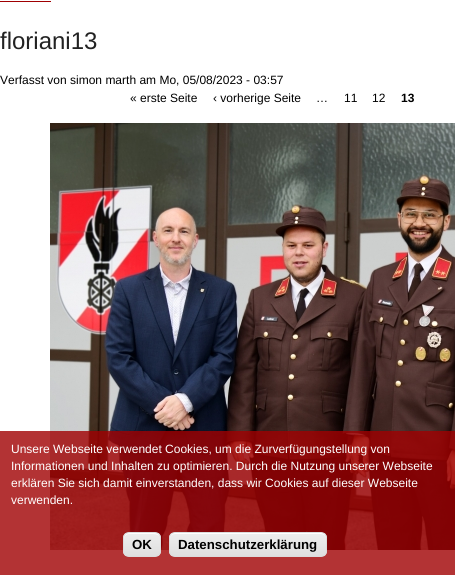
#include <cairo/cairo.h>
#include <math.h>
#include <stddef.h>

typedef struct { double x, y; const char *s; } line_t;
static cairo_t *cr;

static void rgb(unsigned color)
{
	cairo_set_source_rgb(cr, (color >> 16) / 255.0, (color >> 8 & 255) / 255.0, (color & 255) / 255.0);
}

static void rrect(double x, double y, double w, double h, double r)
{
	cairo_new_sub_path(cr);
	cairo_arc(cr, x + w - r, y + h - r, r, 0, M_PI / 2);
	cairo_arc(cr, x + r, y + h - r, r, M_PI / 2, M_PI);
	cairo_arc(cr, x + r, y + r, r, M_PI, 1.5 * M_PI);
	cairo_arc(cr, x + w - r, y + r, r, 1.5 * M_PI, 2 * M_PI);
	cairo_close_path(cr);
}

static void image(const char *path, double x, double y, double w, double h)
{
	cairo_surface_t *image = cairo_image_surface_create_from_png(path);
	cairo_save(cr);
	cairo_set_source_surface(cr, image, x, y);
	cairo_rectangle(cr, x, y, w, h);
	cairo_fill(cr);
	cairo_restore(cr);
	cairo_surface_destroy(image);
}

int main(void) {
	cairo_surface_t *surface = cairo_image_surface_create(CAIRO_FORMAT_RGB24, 455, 575);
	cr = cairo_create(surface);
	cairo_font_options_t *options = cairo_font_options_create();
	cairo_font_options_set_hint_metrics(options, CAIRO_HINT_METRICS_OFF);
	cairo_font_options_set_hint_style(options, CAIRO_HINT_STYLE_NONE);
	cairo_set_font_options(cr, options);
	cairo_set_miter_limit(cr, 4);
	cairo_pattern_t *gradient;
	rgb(0xffffff);
	cairo_paint(cr);
	rgb(0xa00002);
	cairo_rectangle(cr, 0, 1, 51, 1);
	cairo_fill(cr);
	image("img/1.png", 50, 123, 405, 427);
	cairo_set_source_rgba(cr, 0.627, 0, 0.008, 0.8);
	cairo_rectangle(cr, 0, 431, 455, 144);
	cairo_fill(cr);
	cairo_save(cr);
	rrect(123, 532, 38, 25, 6);
	cairo_clip(cr);
	gradient = cairo_pattern_create_linear(124, 533, 124, 556);
	cairo_pattern_add_color_stop_rgba(gradient, 0.05, 0.929, 0.929, 0.929, 1);
	cairo_pattern_add_color_stop_rgba(gradient, 1, 0.875, 0.875, 0.875, 1);
	cairo_set_source(cr, gradient);
	cairo_pattern_destroy(gradient);
	cairo_rectangle(cr, 123, 533, 38, 23);
	cairo_fill(cr);
	cairo_restore(cr);
	rgb(0xffffff);
	cairo_new_path(cr);
	cairo_move_to(cr, 129, 534);
	cairo_line_to(cr, 151, 534);
	cairo_curve_to(cr, 158.5, 534, 160, 535, 160, 540);
	cairo_curve_to(cr, 160, 533, 157, 533, 150.5, 533);
	cairo_line_to(cr, 133.5, 533);
	cairo_curve_to(cr, 126.5, 533, 124, 533, 124, 540.5);
	cairo_curve_to(cr, 124, 537, 125.5, 534, 129, 534);
	cairo_close_path(cr);
	cairo_fill(cr);
	rrect(123.5, 532.5, 37, 24, 5.5);
	rgb(0xdcdcdc);
	cairo_set_line_width(cr, 1);
	cairo_stroke(cr);
	cairo_save(cr);
	rrect(169, 532, 158, 25, 6);
	cairo_clip(cr);
	gradient = cairo_pattern_create_linear(170, 533, 170, 556);
	cairo_pattern_add_color_stop_rgba(gradient, 0.05, 0.929, 0.929, 0.929, 1);
	cairo_pattern_add_color_stop_rgba(gradient, 1, 0.875, 0.875, 0.875, 1);
	cairo_set_source(cr, gradient);
	cairo_pattern_destroy(gradient);
	cairo_rectangle(cr, 169, 533, 158, 23);
	cairo_fill(cr);
	cairo_restore(cr);
	rgb(0xffffff);
	cairo_new_path(cr);
	cairo_move_to(cr, 175, 534);
	cairo_line_to(cr, 321, 534);
	cairo_curve_to(cr, 324, 534, 326, 536, 326, 539);
	cairo_line_to(cr, 326, 538);
	cairo_curve_to(cr, 326, 535, 324, 533, 321, 533);
	cairo_line_to(cr, 175, 533);
	cairo_curve_to(cr, 172, 533, 170, 535, 170, 538);
	cairo_line_to(cr, 170, 539);
	cairo_curve_to(cr, 170, 536, 172, 534, 175, 534);
	cairo_close_path(cr);
	cairo_fill(cr);
	rrect(169.5, 532.5, 157, 24, 5.5);
	rgb(0xdcdcdc);
	cairo_stroke(cr);
	cairo_select_font_face(cr, "Liberation Sans", CAIRO_FONT_SLANT_NORMAL, CAIRO_FONT_WEIGHT_NORMAL);
	cairo_set_font_size(cr, 24);
	rgb(0x222222);
	cairo_move_to(cr, 0, 49);
	cairo_show_text(cr, "floriani13");
	cairo_set_font_size(cr, 12);
	rgb(0x000000);
	{
		static const line_t items[] = {
			{0, 84, "Verfasst von simon marth am Mo, 05/08/2023 - 03:57"},
			{130, 102, "« erste Seite"},
			{213, 102, "‹ vorherige Seite"},
			{316, 102, "…"},
			{344, 102, "11"},
			{372, 102, "12"},
		};
		for (size_t i = 0; i < sizeof items / sizeof *items; i++) {
			cairo_move_to(cr, items[i].x, items[i].y);
			cairo_show_text(cr, items[i].s);
		}
	}
	cairo_select_font_face(cr, "Liberation Sans", CAIRO_FONT_SLANT_NORMAL, CAIRO_FONT_WEIGHT_BOLD);
	cairo_move_to(cr, 401, 102);
	cairo_show_text(cr, "13");
	cairo_select_font_face(cr, "Liberation Sans", CAIRO_FONT_SLANT_NORMAL, CAIRO_FONT_WEIGHT_NORMAL);
	rgb(0xffffff);
	{
		static const line_t items[] = {
			{11, 453, "Unsere Webseite verwendet Cookies, um die Zurverfügungstellung von"},
			{11, 470, "Informationen und Inhalten zu optimieren. Durch die Nutzung unserer Webseite"},
			{11, 487, "erklären Sie sich damit einverstanden, dass wir Cookies auf dieser Webseite"},
			{11, 504, "verwenden."},
		};
		for (size_t i = 0; i < sizeof items / sizeof *items; i++) {
			cairo_move_to(cr, items[i].x, items[i].y);
			cairo_show_text(cr, items[i].s);
		}
	}
	cairo_select_font_face(cr, "Liberation Sans", CAIRO_FONT_SLANT_NORMAL, CAIRO_FONT_WEIGHT_BOLD);
	cairo_set_font_size(cr, 13.25);
	rgb(0x000000);
	cairo_move_to(cr, 132, 549);
	cairo_show_text(cr, "OK");
	cairo_move_to(cr, 178, 549);
	cairo_show_text(cr, "Datenschutzerklärung");
	cairo_surface_write_to_png(surface, "page.png");
	cairo_font_options_destroy(options);
	cairo_destroy(cr);
	cairo_surface_destroy(surface);
	return 0;
}
